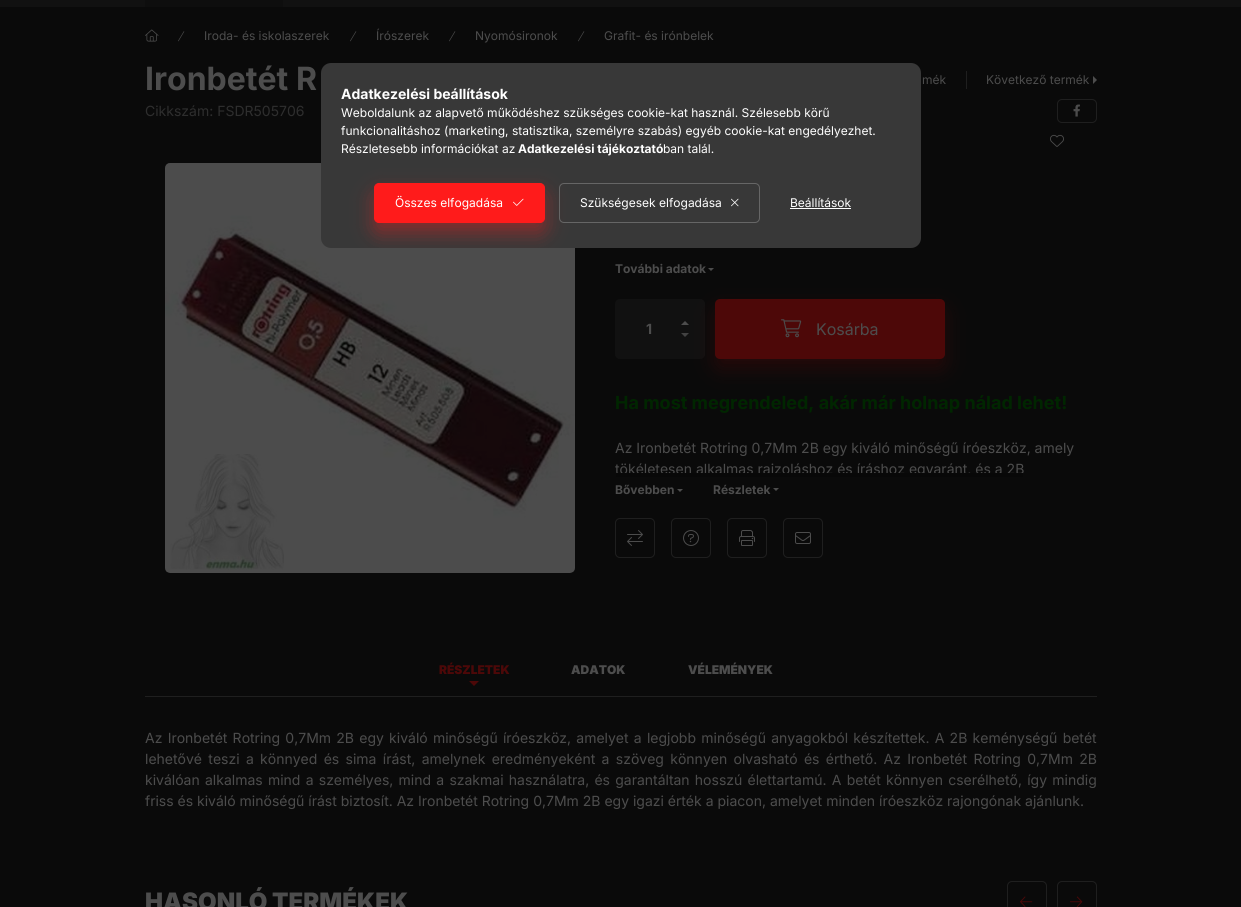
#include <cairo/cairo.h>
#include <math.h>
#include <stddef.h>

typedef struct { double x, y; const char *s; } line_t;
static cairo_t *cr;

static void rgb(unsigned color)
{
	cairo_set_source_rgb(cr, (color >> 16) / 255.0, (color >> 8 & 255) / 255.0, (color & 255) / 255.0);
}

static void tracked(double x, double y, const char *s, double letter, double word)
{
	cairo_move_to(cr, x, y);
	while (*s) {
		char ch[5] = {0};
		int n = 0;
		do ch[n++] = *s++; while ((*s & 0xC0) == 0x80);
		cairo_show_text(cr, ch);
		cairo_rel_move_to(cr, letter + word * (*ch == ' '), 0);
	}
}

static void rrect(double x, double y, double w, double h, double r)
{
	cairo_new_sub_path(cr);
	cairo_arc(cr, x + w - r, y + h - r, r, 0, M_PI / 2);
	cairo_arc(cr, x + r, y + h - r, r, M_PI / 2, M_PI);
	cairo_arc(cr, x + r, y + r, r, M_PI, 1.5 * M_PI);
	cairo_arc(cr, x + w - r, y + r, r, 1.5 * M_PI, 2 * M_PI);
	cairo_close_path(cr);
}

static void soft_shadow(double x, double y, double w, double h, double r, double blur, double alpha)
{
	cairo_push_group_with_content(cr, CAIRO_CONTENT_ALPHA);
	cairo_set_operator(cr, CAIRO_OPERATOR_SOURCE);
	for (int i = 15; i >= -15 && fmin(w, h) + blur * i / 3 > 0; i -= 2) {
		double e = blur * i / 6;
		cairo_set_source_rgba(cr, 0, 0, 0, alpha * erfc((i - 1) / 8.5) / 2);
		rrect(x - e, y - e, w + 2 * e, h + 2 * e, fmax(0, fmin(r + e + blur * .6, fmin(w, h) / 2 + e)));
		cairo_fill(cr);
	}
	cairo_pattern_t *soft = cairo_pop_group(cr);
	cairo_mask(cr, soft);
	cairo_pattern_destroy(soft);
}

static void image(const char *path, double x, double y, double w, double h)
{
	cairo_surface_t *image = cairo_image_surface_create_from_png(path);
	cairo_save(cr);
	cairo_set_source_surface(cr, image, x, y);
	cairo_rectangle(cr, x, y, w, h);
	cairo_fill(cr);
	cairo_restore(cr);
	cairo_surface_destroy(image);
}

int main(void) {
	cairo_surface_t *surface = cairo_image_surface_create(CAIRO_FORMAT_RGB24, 1241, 907);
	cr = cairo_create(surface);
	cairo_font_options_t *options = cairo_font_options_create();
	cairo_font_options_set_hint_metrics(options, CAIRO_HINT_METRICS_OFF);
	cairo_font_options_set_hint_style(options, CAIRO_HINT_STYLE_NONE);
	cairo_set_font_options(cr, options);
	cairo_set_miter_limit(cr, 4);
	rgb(0x0a0a0a);
	cairo_paint(cr);
	rgb(0x111111);
	cairo_rectangle(cr, 0, 0, 1241, 7);
	cairo_fill(cr);
	rgb(0x0e0e0e);
	cairo_rectangle(cr, 145, 0, 138, 7);
	cairo_fill(cr);
	image("img/1.png", 145, 29, 14, 13);
	image("img/2.png", 178, 31, 7, 11);
	image("img/2.png", 350, 31, 7, 11);
	image("img/2.png", 449, 31, 7, 11);
	image("img/2.png", 578, 31, 7, 11);
	rgb(0x1f1f1f);
	cairo_rectangle(cr, 966, 71, 1, 18);
	cairo_fill(cr);
	rgb(0x4d4d4d);
	cairo_new_path(cr);
	cairo_move_to(cr, 1093, 84);
	cairo_line_to(cr, 1093, 76);
	cairo_line_to(cr, 1097, 80);
	cairo_close_path(cr);
	cairo_fill(cr);
	rrect(1057.5, 99.5, 39, 23, 4.5);
	rgb(0x1f1f1f);
	cairo_set_line_width(cr, 1);
	cairo_stroke(cr);
	image("img/3.png", 1073, 104, 7, 13);
	image("img/4.png", 1050, 134, 14, 13);
	image("img/5.png", 165, 163, 410, 410);
	rgb(0x4d4d4d);
	cairo_new_path(cr);
	cairo_move_to(cr, 708, 268);
	cairo_line_to(cr, 714, 268);
	cairo_line_to(cr, 711, 271);
	cairo_close_path(cr);
	cairo_fill(cr);
	rgb(0x111111);
	rrect(615, 299, 90, 60, 5);
	cairo_fill(cr);
	rgb(0x4d4d4d);
	cairo_new_path(cr);
	cairo_move_to(cr, 689, 325);
	cairo_line_to(cr, 681, 325);
	cairo_line_to(cr, 685, 321);
	cairo_close_path(cr);
	cairo_fill(cr);
	rgb(0x424242);
	cairo_new_path(cr);
	cairo_move_to(cr, 681, 333);
	cairo_line_to(cr, 689, 333);
	cairo_line_to(cr, 685, 337);
	cairo_close_path(cr);
	cairo_fill(cr);
	rgb(0x4d0808);
	soft_shadow(715, 309, 230, 60, 5, 10, 0.4);
	rgb(0x4d0808);
	rrect(715, 299, 230, 60, 5);
	cairo_fill(cr);
	image("img/6.png", 781, 319, 21, 19);
	rgb(0x4d4d4d);
	cairo_new_path(cr);
	cairo_move_to(cr, 677, 489);
	cairo_line_to(cr, 683, 489);
	cairo_line_to(cr, 680, 492);
	cairo_close_path(cr);
	cairo_fill(cr);
	cairo_new_path(cr);
	cairo_move_to(cr, 773, 488);
	cairo_line_to(cr, 779, 488);
	cairo_line_to(cr, 776, 491);
	cairo_close_path(cr);
	cairo_fill(cr);
	rrect(615.5, 518.5, 39, 39, 4.5);
	rgb(0x1f1f1f);
	cairo_stroke(cr);
	image("img/7.png", 627, 530, 16, 16);
	rrect(671.5, 518.5, 39, 39, 4.5);
	cairo_stroke(cr);
	image("img/8.png", 683, 530, 16, 16);
	rrect(727.5, 518.5, 39, 39, 4.5);
	cairo_stroke(cr);
	image("img/9.png", 739, 530, 16, 16);
	rrect(783.5, 518.5, 39, 39, 4.5);
	cairo_stroke(cr);
	image("img/10.png", 795, 532, 16, 12);
	cairo_rectangle(cr, 145, 696, 952, 1);
	cairo_fill(cr);
	rgb(0x4d0808);
	cairo_new_path(cr);
	cairo_move_to(cr, 469, 681);
	cairo_line_to(cr, 479, 681);
	cairo_line_to(cr, 474, 686);
	cairo_close_path(cr);
	cairo_fill(cr);
	rrect(1007.5, 881.5, 39, 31, 4.5);
	rgb(0x1f1f1f);
	cairo_stroke(cr);
	image("img/11.png", 1020, 896, 13, 11);
	rrect(1057.5, 881.5, 39, 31, 4.5);
	cairo_stroke(cr);
	image("img/12.png", 1070, 896, 13, 11);
	rgb(0x383838);
	rrect(321, 63, 600, 185, 10);
	cairo_fill(cr);
	cairo_save(cr);
	rrect(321, 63, 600, 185, 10);
	cairo_clip(cr);
	rgb(0xff1b1b);
	soft_shadow(374, 193, 171, 40, 5, 10, 0.4);
	cairo_restore(cr);
	rgb(0xff1b1b);
	rrect(374.5, 183.5, 170, 39, 4.5);
	cairo_fill_preserve(cr);
	cairo_stroke(cr);
	image("img/13.png", 513, 198, 11, 8);
	rrect(559.5, 183.5, 200, 39, 4.5);
	rgb(0x666666);
	cairo_stroke(cr);
	image("img/14.png", 731, 198, 8, 9);
	rgb(0xffffff);
	cairo_rectangle(cr, 790, 208, 61, 1);
	cairo_fill(cr);
	cairo_select_font_face(cr, "Inter", CAIRO_FONT_SLANT_NORMAL, CAIRO_FONT_WEIGHT_NORMAL);
	cairo_set_font_size(cr, 12);
	rgb(0x4d4d4d);
	{
		static const line_t items[] = {
			{204, 40, "Iroda- és iskolaszerek"},
			{376, 40, "Írószerek"},
			{475, 40, "Nyomósironok"},
			{604, 40, "Grafit- és irónbelek"},
		};
		for (size_t i = 0; i < sizeof items / sizeof *items; i++) {
			cairo_move_to(cr, items[i].x, items[i].y);
			cairo_show_text(cr, items[i].s);
		}
	}
	cairo_select_font_face(cr, "Inter", CAIRO_FONT_SLANT_NORMAL, CAIRO_FONT_WEIGHT_BOLD);
	cairo_set_font_size(cr, 32);
	cairo_move_to(cr, 145, 90);
	cairo_show_text(cr, "Ironbetét R");
	cairo_select_font_face(cr, "Inter", CAIRO_FONT_SLANT_NORMAL, CAIRO_FONT_WEIGHT_NORMAL);
	cairo_set_font_size(cr, 12);
	cairo_move_to(cr, 922, 84);
	cairo_show_text(cr, "mék");
	cairo_move_to(cr, 986, 84);
	cairo_show_text(cr, "Következő termék");
	cairo_set_font_size(cr, 14);
	rgb(0x2e2e2e);
	cairo_move_to(cr, 145, 116);
	cairo_show_text(cr, "Cikkszám: FSDR505706");
	cairo_select_font_face(cr, "Inter", CAIRO_FONT_SLANT_NORMAL, CAIRO_FONT_WEIGHT_BOLD);
	cairo_set_font_size(cr, 12);
	rgb(0x4d4d4d);
	cairo_move_to(cr, 615, 273);
	cairo_show_text(cr, "További adatok");
	cairo_set_font_size(cr, 14);
	cairo_move_to(cr, 646, 334);
	cairo_show_text(cr, "1");
	cairo_select_font_face(cr, "Inter", CAIRO_FONT_SLANT_NORMAL, CAIRO_FONT_WEIGHT_NORMAL);
	cairo_set_font_size(cr, 16);
	cairo_move_to(cr, 816, 335);
	cairo_show_text(cr, "Kosárba");
	cairo_select_font_face(cr, "Inter", CAIRO_FONT_SLANT_NORMAL, CAIRO_FONT_WEIGHT_BOLD);
	cairo_set_font_size(cr, 18);
	rgb(0x002600);
	cairo_move_to(cr, 615, 409);
	cairo_show_text(cr, "Ha most megrendeled, akár már holnap nálad lehet!");
	cairo_select_font_face(cr, "Inter", CAIRO_FONT_SLANT_NORMAL, CAIRO_FONT_WEIGHT_NORMAL);
	cairo_set_font_size(cr, 14);
	rgb(0x4d4d4d);
	cairo_move_to(cr, 615, 453);
	cairo_show_text(cr, "Az Ironbetét Rotring 0,7Mm 2B egy kiváló minőségű íróeszköz, amely");
	cairo_move_to(cr, 615, 474);
	cairo_show_text(cr, "tökéletesen alkalmas rajzoláshoz és íráshoz egyaránt, és a 2B");
	rgb(0x080808);
	cairo_rectangle(cr, 616, 473, 407, 4);
	cairo_fill(cr);
	cairo_select_font_face(cr, "Inter", CAIRO_FONT_SLANT_NORMAL, CAIRO_FONT_WEIGHT_BOLD);
	cairo_set_font_size(cr, 12);
	rgb(0x4d4d4d);
	cairo_move_to(cr, 615, 494);
	cairo_show_text(cr, "Bővebben");
	cairo_move_to(cr, 713, 494);
	cairo_show_text(cr, "Részletek");
	cairo_select_font_face(cr, "Inter Black", CAIRO_FONT_SLANT_NORMAL, CAIRO_FONT_WEIGHT_NORMAL);
	rgb(0x4d0808);
	cairo_move_to(cr, 439, 674);
	cairo_show_text(cr, "RÉSZLETEK");
	rgb(0x4d4d4d);
	cairo_move_to(cr, 571, 674);
	cairo_show_text(cr, "ADATOK");
	cairo_move_to(cr, 688, 674);
	cairo_show_text(cr, "VÉLEMÉNYEK");
	cairo_select_font_face(cr, "Inter", CAIRO_FONT_SLANT_NORMAL, CAIRO_FONT_WEIGHT_NORMAL);
	cairo_set_font_size(cr, 14);
	tracked(145, 743, "Az Ironbetét Rotring 0,7Mm 2B egy kiváló minőségű íróeszköz, amelyet a legjobb minőségű anyagokból készítettek. A 2B keménységű betét", 0, 1.3);
	tracked(145, 764, "lehetővé teszi a könnyed és sima írást, amelynek eredményeként a szöveg könnyen olvasható és érthető. Az Ironbetét Rotring 0,7Mm 2B", 0, 2.4);
	tracked(145, 785, "kiválóan alkalmas mind a személyes, mind a szakmai használatra, és garantáltan hosszú élettartamú. A betét könnyen cserélhető, így mindig", 0, 1.3);
	cairo_move_to(cr, 145, 806);
	cairo_show_text(cr, "friss és kiváló minőségű írást biztosít. Az Ironbetét Rotring 0,7Mm 2B egy igazi érték a piacon, amelyet minden íróeszköz rajongónak ajánlunk.");
	cairo_select_font_face(cr, "Inter Black", CAIRO_FONT_SLANT_NORMAL, CAIRO_FONT_WEIGHT_NORMAL);
	cairo_set_font_size(cr, 24);
	cairo_move_to(cr, 145, 910);
	cairo_show_text(cr, "HASONLÓ TERMÉKEK");
	cairo_select_font_face(cr, "Inter", CAIRO_FONT_SLANT_NORMAL, CAIRO_FONT_WEIGHT_BOLD);
	cairo_set_font_size(cr, 14);
	rgb(0xffffff);
	cairo_move_to(cr, 341, 99);
	cairo_show_text(cr, "Adatkezelési beállítások");
	cairo_select_font_face(cr, "Inter", CAIRO_FONT_SLANT_NORMAL, CAIRO_FONT_WEIGHT_NORMAL);
	cairo_set_font_size(cr, 12);
	{
		static const line_t items[] = {
			{341, 117, "Weboldalunk az alapvető működéshez szükséges cookie-kat használ. Szélesebb körű"},
			{341, 135, "funkcionalitáshoz (marketing, statisztika, személyre szabás) egyéb cookie-kat engedélyezhet."},
			{341, 153, "Részletesebb információkat az"},
		};
		for (size_t i = 0; i < sizeof items / sizeof *items; i++) {
			cairo_move_to(cr, items[i].x, items[i].y);
			cairo_show_text(cr, items[i].s);
		}
	}
	cairo_select_font_face(cr, "Inter", CAIRO_FONT_SLANT_NORMAL, CAIRO_FONT_WEIGHT_BOLD);
	cairo_move_to(cr, 518, 153);
	cairo_show_text(cr, "Adatkezelési tájékoztató");
	cairo_select_font_face(cr, "Inter", CAIRO_FONT_SLANT_NORMAL, CAIRO_FONT_WEIGHT_NORMAL);
	{
		static const line_t items[] = {
			{663, 153, "ban talál."},
			{395, 207, "Összes elfogadása"},
			{580, 207, "Szükségesek elfogadása"},
			{790, 207, "Beállítások"},
		};
		for (size_t i = 0; i < sizeof items / sizeof *items; i++) {
			cairo_move_to(cr, items[i].x, items[i].y);
			cairo_show_text(cr, items[i].s);
		}
	}
	cairo_surface_write_to_png(surface, "page.png");
	cairo_font_options_destroy(options);
	cairo_destroy(cr);
	cairo_surface_destroy(surface);
	return 0;
}
